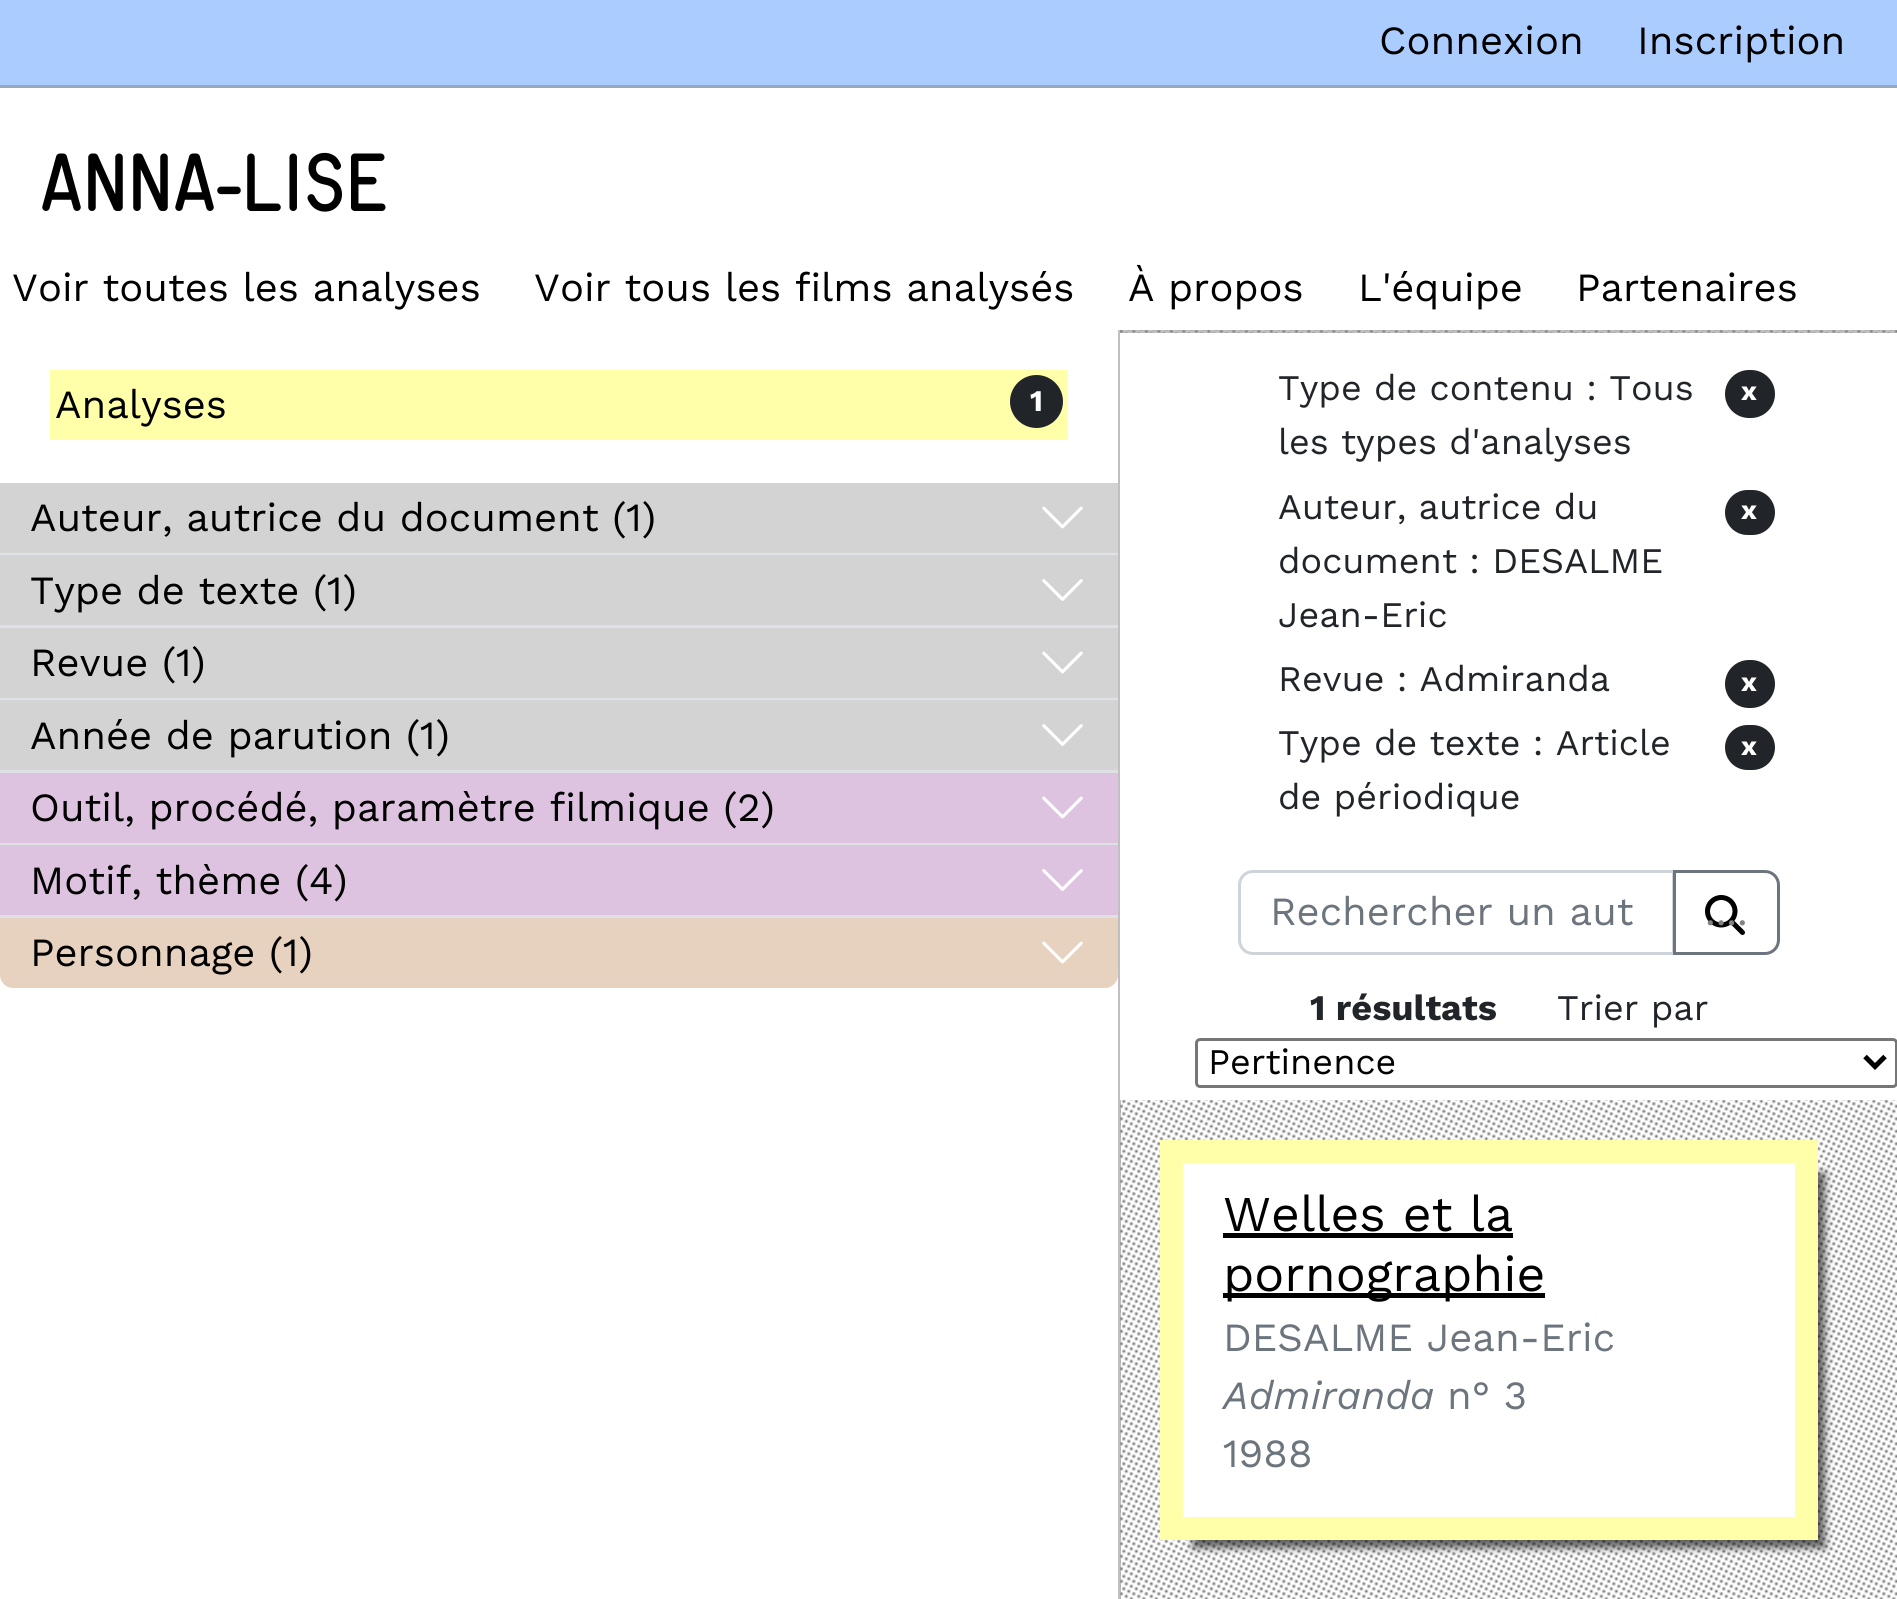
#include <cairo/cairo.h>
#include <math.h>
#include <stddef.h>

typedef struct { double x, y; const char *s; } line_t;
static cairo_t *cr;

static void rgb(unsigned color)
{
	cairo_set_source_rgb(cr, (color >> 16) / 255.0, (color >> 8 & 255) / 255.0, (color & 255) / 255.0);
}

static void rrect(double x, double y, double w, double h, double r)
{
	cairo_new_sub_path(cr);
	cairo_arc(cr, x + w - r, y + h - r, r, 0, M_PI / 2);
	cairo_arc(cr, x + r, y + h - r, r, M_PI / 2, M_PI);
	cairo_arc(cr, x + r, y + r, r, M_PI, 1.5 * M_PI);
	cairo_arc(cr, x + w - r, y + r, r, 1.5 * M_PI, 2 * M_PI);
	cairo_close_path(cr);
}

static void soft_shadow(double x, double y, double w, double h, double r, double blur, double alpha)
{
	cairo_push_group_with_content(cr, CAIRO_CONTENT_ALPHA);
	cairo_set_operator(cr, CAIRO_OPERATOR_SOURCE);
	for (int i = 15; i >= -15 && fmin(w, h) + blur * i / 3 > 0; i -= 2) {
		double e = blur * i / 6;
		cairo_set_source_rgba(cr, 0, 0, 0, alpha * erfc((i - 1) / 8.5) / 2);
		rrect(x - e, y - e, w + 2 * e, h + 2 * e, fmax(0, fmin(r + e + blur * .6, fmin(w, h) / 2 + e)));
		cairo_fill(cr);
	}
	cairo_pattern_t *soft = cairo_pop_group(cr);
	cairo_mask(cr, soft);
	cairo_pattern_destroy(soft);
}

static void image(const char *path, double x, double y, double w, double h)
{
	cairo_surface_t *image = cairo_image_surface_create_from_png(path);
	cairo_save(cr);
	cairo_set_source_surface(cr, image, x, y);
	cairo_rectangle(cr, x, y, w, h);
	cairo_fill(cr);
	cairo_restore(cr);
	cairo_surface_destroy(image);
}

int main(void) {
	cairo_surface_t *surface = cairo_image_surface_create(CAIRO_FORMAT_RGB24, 1897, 1599);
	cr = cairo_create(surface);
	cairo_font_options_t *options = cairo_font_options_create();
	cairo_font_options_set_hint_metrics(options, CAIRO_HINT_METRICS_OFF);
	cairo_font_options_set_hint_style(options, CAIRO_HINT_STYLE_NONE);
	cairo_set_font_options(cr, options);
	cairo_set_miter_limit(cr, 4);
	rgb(0xffffff);
	cairo_paint(cr);
	rgb(0xaaccff);
	cairo_rectangle(cr, 0, 0, 1897, 85);
	cairo_fill(cr);
	rgb(0x98a8c0);
	cairo_rectangle(cr, 0, 85, 1897, 3);
	cairo_fill(cr);
	image("img/1.png", 1120, 330, 777, 1269);
	cairo_set_source_rgba(cr, 0.533, 0.533, 0.533, 0.53);
	cairo_rectangle(cr, 1118, 330, 3, 1269);
	cairo_fill(cr);
	rgb(0xffffaa);
	cairo_rectangle(cr, 50, 370, 1018, 70);
	cairo_fill(cr);
	rgb(0x212529);
	cairo_arc(cr, 1036.5, 401.5, 26.5, 0, 2 * M_PI);
	cairo_fill(cr);
	rgb(0xdee2e6);
	cairo_rectangle(cr, 0, 553, 1118, 2);
	cairo_fill(cr);
	rgb(0xd3d3d3);
	cairo_rectangle(cr, 0, 483, 1118, 70);
	cairo_fill(cr);
	image("img/2.png", 1042, 506, 41, 23);
	rgb(0xdee2e6);
	cairo_rectangle(cr, 0, 625, 1118, 3);
	cairo_fill(cr);
	rgb(0xd3d3d3);
	cairo_rectangle(cr, 0, 555, 1118, 70);
	cairo_fill(cr);
	image("img/3.png", 1042, 579, 41, 22);
	rgb(0xdee2e6);
	cairo_rectangle(cr, 0, 698, 1118, 2);
	cairo_fill(cr);
	rgb(0xd3d3d3);
	cairo_rectangle(cr, 0, 628, 1118, 70);
	cairo_fill(cr);
	image("img/2.png", 1042, 651, 41, 23);
	rgb(0xdee2e6);
	cairo_rectangle(cr, 0, 770, 1118, 3);
	cairo_fill(cr);
	rgb(0xd3d3d3);
	cairo_rectangle(cr, 0, 700, 1118, 70);
	cairo_fill(cr);
	image("img/3.png", 1042, 724, 41, 22);
	rgb(0xdee2e6);
	cairo_rectangle(cr, 0, 843, 1118, 2);
	cairo_fill(cr);
	rgb(0xddc3e0);
	cairo_rectangle(cr, 0, 773, 1118, 70);
	cairo_fill(cr);
	image("img/4.png", 1042, 796, 41, 23);
	rgb(0xdee2e6);
	cairo_rectangle(cr, 0, 915, 1118, 3);
	cairo_fill(cr);
	rgb(0xddc3e0);
	cairo_rectangle(cr, 0, 845, 1118, 70);
	cairo_fill(cr);
	image("img/5.png", 1042, 869, 41, 22);
	rgb(0xe6d2be);
	cairo_new_path(cr);
	cairo_move_to(cr, 0, 918);
	cairo_line_to(cr, 1118, 918);
	cairo_line_to(cr, 1118, 975);
	cairo_curve_to(cr, 1118, 982, 1112, 988, 1105, 988);
	cairo_line_to(cr, 13, 988);
	cairo_curve_to(cr, 6, 988, 0, 982, 0, 975);
	cairo_close_path(cr);
	cairo_fill(cr);
	image("img/6.png", 1042, 941, 41, 23);
	cairo_set_source_rgba(cr, 0.533, 0.533, 0.533, 0.53);
	cairo_rectangle(cr, 1120, 330, 777, 3);
	cairo_fill(cr);
	rgb(0xffffff);
	cairo_rectangle(cr, 1120, 333, 777, 767);
	cairo_fill(cr);
	rgb(0x212529);
	rrect(1725, 370, 50, 48, 24);
	cairo_fill(cr);
	rrect(1725, 490, 50, 45, 22.5);
	cairo_fill(cr);
	rrect(1725, 660, 50, 48, 24);
	cairo_fill(cr);
	rrect(1725, 725, 50, 45, 22.5);
	cairo_fill(cr);
	cairo_new_path(cr);
	cairo_move_to(cr, 1253, 871.5);
	cairo_line_to(cr, 1673.5, 871.5);
	cairo_line_to(cr, 1673.5, 953.5);
	cairo_line_to(cr, 1253, 953.5);
	cairo_curve_to(cr, 1245.5, 953.5, 1239.5, 947.5, 1239.5, 940);
	cairo_line_to(cr, 1239.5, 885);
	cairo_curve_to(cr, 1239.5, 877.5, 1245.5, 871.5, 1253, 871.5);
	cairo_close_path(cr);
	rgb(0xced4da);
	cairo_set_line_width(cr, 3);
	cairo_stroke(cr);
	cairo_new_path(cr);
	cairo_move_to(cr, 1674.5, 871.5);
	cairo_line_to(cr, 1765, 871.5);
	cairo_curve_to(cr, 1772.5, 871.5, 1778.5, 877.5, 1778.5, 885);
	cairo_line_to(cr, 1778.5, 940);
	cairo_curve_to(cr, 1778.5, 947.5, 1772.5, 953.5, 1765, 953.5);
	cairo_line_to(cr, 1674.5, 953.5);
	cairo_close_path(cr);
	rgb(0x6c757d);
	cairo_stroke(cr);
	image("img/7.png", 1705, 895, 40, 40);
	rrect(1196.5, 1039.5, 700, 47, 3.5);
	rgb(0x767676);
	cairo_stroke(cr);
	cairo_new_path(cr);
	cairo_move_to(cr, 1865, 1056.5);
	cairo_line_to(cr, 1875, 1066.5);
	cairo_line_to(cr, 1885, 1056.5);
	rgb(0x000000);
	cairo_set_line_width(cr, 5);
	cairo_stroke(cr);
	rgb(0x000000);
	soft_shadow(1193, 1173, 632, 375, 0, 4, 0.6);
	rgb(0xffffff);
	cairo_rectangle(cr, 1171.5, 1151.5, 635, 377);
	cairo_fill_preserve(cr);
	rgb(0xffffaa);
	cairo_set_line_width(cr, 23);
	cairo_stroke(cr);
	rgb(0x000000);
	cairo_rectangle(cr, 1223, 1233, 290, 5);
	cairo_fill(cr);
	cairo_rectangle(cr, 1223, 1293, 322, 5);
	cairo_fill(cr);
	cairo_select_font_face(cr, "Work Sans", CAIRO_FONT_SLANT_NORMAL, CAIRO_FONT_WEIGHT_NORMAL);
	cairo_set_font_size(cr, 40);
	cairo_move_to(cr, 1379, 54);
	cairo_show_text(cr, "Connexion");
	cairo_move_to(cr, 1637, 54);
	cairo_show_text(cr, "Inscription");
	cairo_select_font_face(cr, "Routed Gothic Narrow", CAIRO_FONT_SLANT_NORMAL, CAIRO_FONT_WEIGHT_NORMAL);
	cairo_set_font_size(cr, 80);
	cairo_move_to(cr, 40, 211);
	cairo_show_text(cr, "ANNA-LISE");
	cairo_select_font_face(cr, "Work Sans", CAIRO_FONT_SLANT_NORMAL, CAIRO_FONT_WEIGHT_NORMAL);
	cairo_set_font_size(cr, 40);
	{
		static const line_t items[] = {
			{12, 301, "Voir toutes les analyses"},
			{534, 301, "Voir tous les films analysés"},
			{1128, 301, "À propos"},
			{1358, 301, "L'équipe"},
			{1576, 301, "Partenaires"},
			{55, 418, "Analyses"},
		};
		for (size_t i = 0; i < sizeof items / sizeof *items; i++) {
			cairo_move_to(cr, items[i].x, items[i].y);
			cairo_show_text(cr, items[i].s);
		}
	}
	cairo_select_font_face(cr, "Work Sans", CAIRO_FONT_SLANT_NORMAL, CAIRO_FONT_WEIGHT_BOLD);
	cairo_set_font_size(cr, 30);
	rgb(0xffffff);
	cairo_move_to(cr, 1030, 411);
	cairo_show_text(cr, "1");
	cairo_select_font_face(cr, "Work Sans", CAIRO_FONT_SLANT_NORMAL, CAIRO_FONT_WEIGHT_NORMAL);
	cairo_set_font_size(cr, 40);
	rgb(0x000000);
	{
		static const line_t items[] = {
			{30, 531, "Auteur, autrice du document (1)"},
			{30, 604, "Type de texte (1)"},
			{30, 676, "Revue (1)"},
			{30, 749, "Année de parution (1)"},
			{30, 821, "Outil, procédé, paramètre filmique (2)"},
			{30, 894, "Motif, thème (4)"},
			{30, 966, "Personnage (1)"},
		};
		for (size_t i = 0; i < sizeof items / sizeof *items; i++) {
			cairo_move_to(cr, items[i].x, items[i].y);
			cairo_show_text(cr, items[i].s);
		}
	}
	cairo_set_font_size(cr, 36);
	rgb(0x212529);
	cairo_move_to(cr, 1278, 400);
	cairo_show_text(cr, "Type de contenu : Tous");
	cairo_move_to(cr, 1278, 454);
	cairo_show_text(cr, "les types d'analyses");
	cairo_select_font_face(cr, "Work Sans", CAIRO_FONT_SLANT_NORMAL, CAIRO_FONT_WEIGHT_BOLD);
	cairo_set_font_size(cr, 27);
	rgb(0xffffff);
	cairo_move_to(cr, 1741, 400);
	cairo_show_text(cr, "x");
	cairo_select_font_face(cr, "Work Sans", CAIRO_FONT_SLANT_NORMAL, CAIRO_FONT_WEIGHT_NORMAL);
	cairo_set_font_size(cr, 36);
	rgb(0x212529);
	{
		static const line_t items[] = {
			{1278, 519, "Auteur, autrice du"},
			{1278, 573, "document : DESALME"},
			{1278, 627, "Jean-Eric"},
		};
		for (size_t i = 0; i < sizeof items / sizeof *items; i++) {
			cairo_move_to(cr, items[i].x, items[i].y);
			cairo_show_text(cr, items[i].s);
		}
	}
	cairo_select_font_face(cr, "Work Sans", CAIRO_FONT_SLANT_NORMAL, CAIRO_FONT_WEIGHT_BOLD);
	cairo_set_font_size(cr, 27);
	rgb(0xffffff);
	cairo_move_to(cr, 1741, 519);
	cairo_show_text(cr, "x");
	cairo_select_font_face(cr, "Work Sans", CAIRO_FONT_SLANT_NORMAL, CAIRO_FONT_WEIGHT_NORMAL);
	cairo_set_font_size(cr, 36);
	rgb(0x212529);
	cairo_move_to(cr, 1278, 691);
	cairo_show_text(cr, "Revue : Admiranda");
	cairo_select_font_face(cr, "Work Sans", CAIRO_FONT_SLANT_NORMAL, CAIRO_FONT_WEIGHT_BOLD);
	cairo_set_font_size(cr, 27);
	rgb(0xffffff);
	cairo_move_to(cr, 1741, 691);
	cairo_show_text(cr, "x");
	cairo_select_font_face(cr, "Work Sans", CAIRO_FONT_SLANT_NORMAL, CAIRO_FONT_WEIGHT_NORMAL);
	cairo_set_font_size(cr, 36);
	rgb(0x212529);
	cairo_move_to(cr, 1278, 755);
	cairo_show_text(cr, "Type de texte : Article");
	cairo_move_to(cr, 1278, 809);
	cairo_show_text(cr, "de périodique");
	cairo_select_font_face(cr, "Work Sans", CAIRO_FONT_SLANT_NORMAL, CAIRO_FONT_WEIGHT_BOLD);
	cairo_set_font_size(cr, 27);
	rgb(0xffffff);
	cairo_move_to(cr, 1741, 755);
	cairo_show_text(cr, "x");
	cairo_select_font_face(cr, "Work Sans", CAIRO_FONT_SLANT_NORMAL, CAIRO_FONT_WEIGHT_NORMAL);
	cairo_set_font_size(cr, 40);
	rgb(0x6c757d);
	cairo_move_to(cr, 1270, 925);
	cairo_show_text(cr, "Rechercher un aut");
	rgb(0x828282);
	cairo_move_to(cr, 1705, 925);
	cairo_show_text(cr, "....");
	cairo_select_font_face(cr, "Work Sans", CAIRO_FONT_SLANT_NORMAL, CAIRO_FONT_WEIGHT_BOLD);
	cairo_set_font_size(cr, 36);
	rgb(0x212529);
	cairo_move_to(cr, 1310, 1020);
	cairo_show_text(cr, "1 résultats");
	cairo_select_font_face(cr, "Work Sans", CAIRO_FONT_SLANT_NORMAL, CAIRO_FONT_WEIGHT_NORMAL);
	cairo_move_to(cr, 1557, 1020);
	cairo_show_text(cr, "Trier par");
	rgb(0x000000);
	cairo_move_to(cr, 1208, 1074);
	cairo_show_text(cr, "Pertinence");
	cairo_set_font_size(cr, 50);
	cairo_move_to(cr, 1223, 1231);
	cairo_show_text(cr, "Welles et la");
	cairo_move_to(cr, 1223, 1291);
	cairo_show_text(cr, "pornographie");
	cairo_set_font_size(cr, 40);
	rgb(0x6c757d);
	cairo_move_to(cr, 1223, 1351);
	cairo_show_text(cr, "DESALME Jean-Eric");
	cairo_select_font_face(cr, "Work Sans", CAIRO_FONT_SLANT_ITALIC, CAIRO_FONT_WEIGHT_NORMAL);
	cairo_move_to(cr, 1223, 1409);
	cairo_show_text(cr, "Admiranda");
	cairo_select_font_face(cr, "Work Sans", CAIRO_FONT_SLANT_NORMAL, CAIRO_FONT_WEIGHT_NORMAL);
	cairo_move_to(cr, 1447, 1409);
	cairo_show_text(cr, "n° 3");
	cairo_move_to(cr, 1223, 1467);
	cairo_show_text(cr, "1988");
	cairo_surface_write_to_png(surface, "page.png");
	cairo_font_options_destroy(options);
	cairo_destroy(cr);
	cairo_surface_destroy(surface);
	return 0;
}
